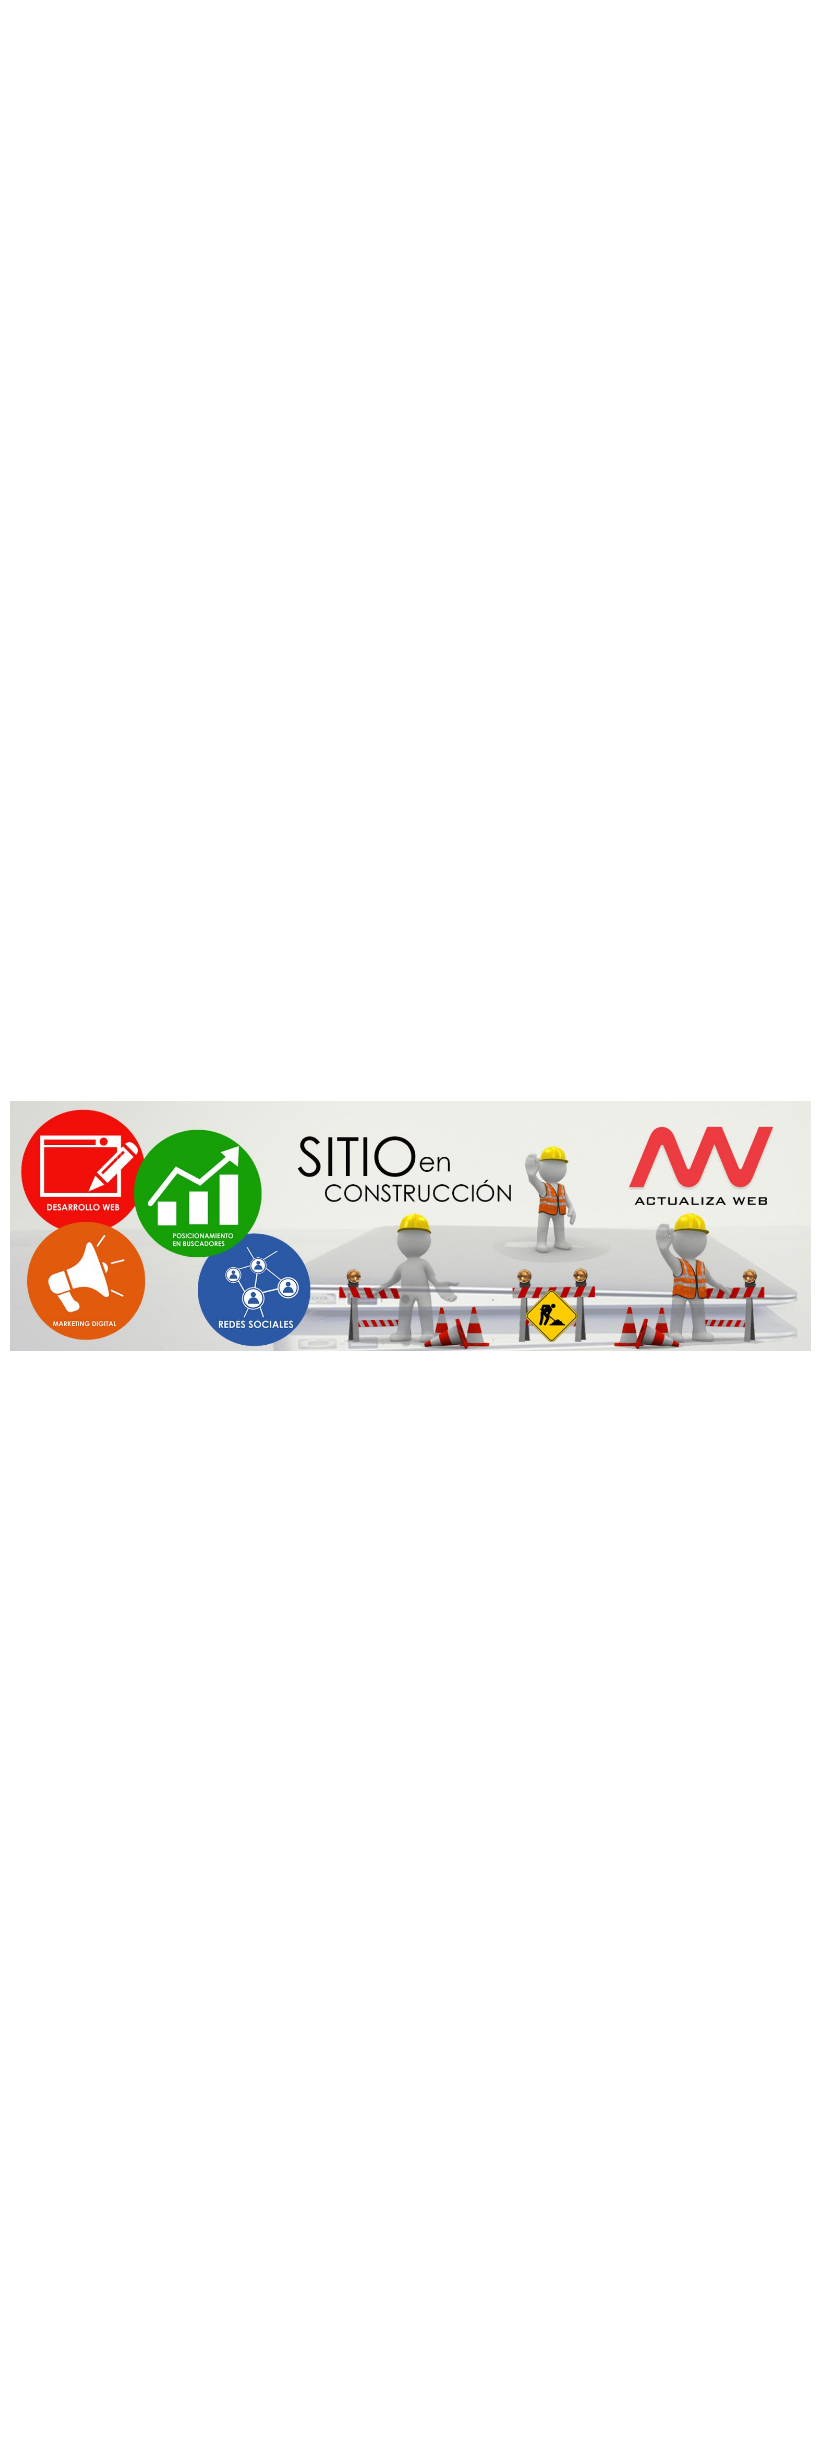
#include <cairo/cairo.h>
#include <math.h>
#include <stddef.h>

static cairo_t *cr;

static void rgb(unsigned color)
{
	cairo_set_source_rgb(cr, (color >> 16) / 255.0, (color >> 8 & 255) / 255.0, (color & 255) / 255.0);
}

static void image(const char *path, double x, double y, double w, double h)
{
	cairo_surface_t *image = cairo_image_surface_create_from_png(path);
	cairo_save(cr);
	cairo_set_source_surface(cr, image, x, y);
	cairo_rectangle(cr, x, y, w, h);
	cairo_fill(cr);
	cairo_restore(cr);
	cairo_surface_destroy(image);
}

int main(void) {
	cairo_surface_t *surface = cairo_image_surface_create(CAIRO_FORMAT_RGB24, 821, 2452);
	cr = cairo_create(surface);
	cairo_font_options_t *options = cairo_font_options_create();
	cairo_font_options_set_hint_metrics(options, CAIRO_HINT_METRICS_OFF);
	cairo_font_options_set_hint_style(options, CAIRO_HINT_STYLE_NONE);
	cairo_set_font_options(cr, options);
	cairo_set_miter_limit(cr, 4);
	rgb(0xffffff);
	cairo_paint(cr);
	image("img/1.png", 10, 1101, 801, 250);
	cairo_surface_write_to_png(surface, "page.png");
	cairo_font_options_destroy(options);
	cairo_destroy(cr);
	cairo_surface_destroy(surface);
	return 0;
}
